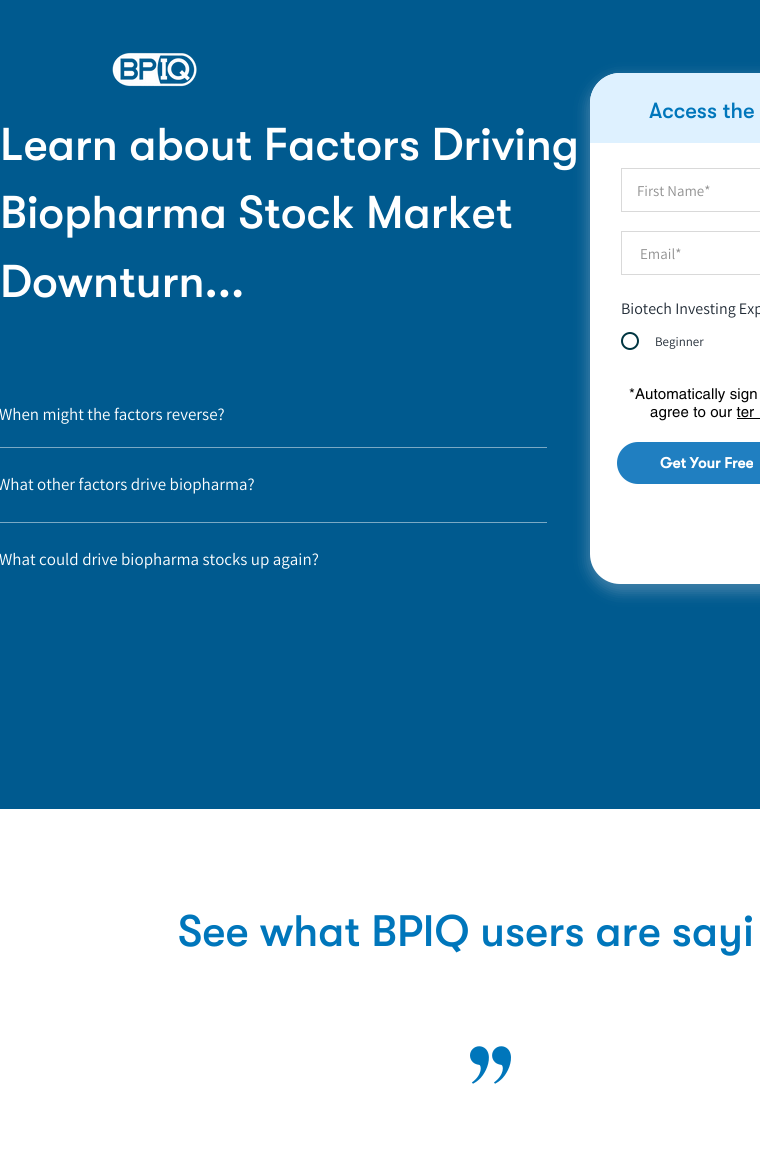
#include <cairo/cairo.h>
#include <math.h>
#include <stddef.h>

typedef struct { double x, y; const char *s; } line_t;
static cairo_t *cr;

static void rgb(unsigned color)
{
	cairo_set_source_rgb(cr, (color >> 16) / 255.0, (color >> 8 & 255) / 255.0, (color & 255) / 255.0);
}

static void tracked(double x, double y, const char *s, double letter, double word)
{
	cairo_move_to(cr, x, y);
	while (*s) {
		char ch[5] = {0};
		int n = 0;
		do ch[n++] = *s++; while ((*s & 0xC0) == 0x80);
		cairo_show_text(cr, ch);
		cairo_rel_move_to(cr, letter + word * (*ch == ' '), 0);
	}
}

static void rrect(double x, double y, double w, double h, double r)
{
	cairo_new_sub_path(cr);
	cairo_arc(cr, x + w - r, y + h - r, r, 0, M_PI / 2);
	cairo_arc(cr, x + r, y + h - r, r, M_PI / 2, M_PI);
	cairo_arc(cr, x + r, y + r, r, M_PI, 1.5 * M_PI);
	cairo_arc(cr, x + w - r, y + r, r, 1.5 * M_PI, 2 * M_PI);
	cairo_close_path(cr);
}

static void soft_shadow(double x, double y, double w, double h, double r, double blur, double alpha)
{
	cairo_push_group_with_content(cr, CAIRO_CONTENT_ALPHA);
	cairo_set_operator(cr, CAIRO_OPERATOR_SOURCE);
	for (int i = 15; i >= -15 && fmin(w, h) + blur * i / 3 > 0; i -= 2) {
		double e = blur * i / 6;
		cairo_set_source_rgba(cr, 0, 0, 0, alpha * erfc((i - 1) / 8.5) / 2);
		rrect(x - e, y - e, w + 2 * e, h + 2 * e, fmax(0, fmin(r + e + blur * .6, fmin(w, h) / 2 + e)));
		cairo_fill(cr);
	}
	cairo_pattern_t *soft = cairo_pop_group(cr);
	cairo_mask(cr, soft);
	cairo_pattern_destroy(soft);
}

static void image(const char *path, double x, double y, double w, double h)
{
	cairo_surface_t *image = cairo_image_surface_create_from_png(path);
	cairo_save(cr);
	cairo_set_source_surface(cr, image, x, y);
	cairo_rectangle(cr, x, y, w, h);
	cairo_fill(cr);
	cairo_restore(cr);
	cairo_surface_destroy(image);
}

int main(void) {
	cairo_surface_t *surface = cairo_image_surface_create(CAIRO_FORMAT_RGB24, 760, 1154);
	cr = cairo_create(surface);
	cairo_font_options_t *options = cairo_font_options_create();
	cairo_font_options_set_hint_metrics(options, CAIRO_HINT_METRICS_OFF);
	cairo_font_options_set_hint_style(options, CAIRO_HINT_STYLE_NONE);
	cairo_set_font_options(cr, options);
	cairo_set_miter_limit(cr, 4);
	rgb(0x005a8f);
	cairo_paint(cr);
	image("img/1.png", 112, 52, 85, 35);
	rgb(0x7aa9c5);
	cairo_rectangle(cr, 0, 447, 547, 1);
	cairo_fill(cr);
	cairo_rectangle(cr, 0, 522, 547, 1);
	cairo_fill(cr);
	rgb(0xc9d1de);
	soft_shadow(587, 76, 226, 517, 33, 6.5, 0.3);
	rgb(0xffffff);
	rrect(590, 73, 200, 511, 30);
	cairo_fill(cr);
	rgb(0xdef1ff);
	cairo_new_path(cr);
	cairo_move_to(cr, 620, 73);
	cairo_line_to(cr, 760, 73);
	cairo_curve_to(cr, 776.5, 73, 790, 86.5, 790, 103);
	cairo_line_to(cr, 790, 143);
	cairo_line_to(cr, 590, 143);
	cairo_line_to(cr, 590, 103);
	cairo_curve_to(cr, 590, 86.5, 603.5, 73, 620, 73);
	cairo_close_path(cr);
	cairo_fill(cr);
	cairo_rectangle(cr, 621.5, 168.5, 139, 43);
	rgb(0xd9d9d9);
	cairo_set_line_width(cr, 1);
	cairo_stroke(cr);
	cairo_rectangle(cr, 621.5, 231.5, 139, 43);
	cairo_stroke(cr);
	cairo_arc(cr, 630, 341, 8, 0, 2 * M_PI);
	rgb(0x003541);
	cairo_set_line_width(cr, 2);
	cairo_stroke(cr);
	rgb(0x000000);
	cairo_rectangle(cr, 737, 418, 23, 1);
	cairo_fill(cr);
	rgb(0x207fc1);
	rrect(617, 442, 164, 42, 21);
	cairo_fill(cr);
	rgb(0xffffff);
	cairo_rectangle(cr, 0, 809, 760, 345);
	cairo_fill(cr);
	image("img/2.png", 470, 1046, 41, 38);
	cairo_select_font_face(cr, "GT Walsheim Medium", CAIRO_FONT_SLANT_NORMAL, CAIRO_FONT_WEIGHT_NORMAL);
	cairo_set_font_size(cr, 46);
	{
		static const line_t items[] = {
			{0, 160, "Learn about Factors Driving"},
			{0, 228, "Biopharma Stock Market"},
			{0, 297, "Downturn..."},
		};
		for (size_t i = 0; i < sizeof items / sizeof *items; i++) {
			cairo_move_to(cr, items[i].x, items[i].y);
			cairo_show_text(cr, items[i].s);
		}
	}
	cairo_select_font_face(cr, "Assistant", CAIRO_FONT_SLANT_NORMAL, CAIRO_FONT_WEIGHT_NORMAL);
	cairo_set_font_size(cr, 17);
	{
		static const line_t items[] = {
			{-1, 420, "When might the factors reverse?"},
			{-3, 490, "What other factors drive biopharma?"},
			{-1, 565, "What could drive biopharma stocks up again?"},
		};
		for (size_t i = 0; i < sizeof items / sizeof *items; i++) {
			cairo_move_to(cr, items[i].x, items[i].y);
			cairo_show_text(cr, items[i].s);
		}
	}
	cairo_select_font_face(cr, "GT Walsheim Medium", CAIRO_FONT_SLANT_NORMAL, CAIRO_FONT_WEIGHT_NORMAL);
	cairo_set_font_size(cr, 22);
	rgb(0x0076bb);
	cairo_move_to(cr, 649, 118);
	cairo_show_text(cr, "Access the");
	cairo_select_font_face(cr, "Assistant", CAIRO_FONT_SLANT_NORMAL, CAIRO_FONT_WEIGHT_NORMAL);
	cairo_set_font_size(cr, 15);
	rgb(0x909090);
	cairo_move_to(cr, 637, 196);
	cairo_show_text(cr, "First Name*");
	cairo_move_to(cr, 640, 259);
	cairo_show_text(cr, "Email*");
	cairo_set_font_size(cr, 16);
	rgb(0x202a35);
	cairo_move_to(cr, 621, 314);
	cairo_show_text(cr, "Biotech Investing Exp");
	cairo_set_font_size(cr, 13);
	cairo_move_to(cr, 655, 346);
	cairo_show_text(cr, "Beginner");
	cairo_select_font_face(cr, "helvetica", CAIRO_FONT_SLANT_NORMAL, CAIRO_FONT_WEIGHT_NORMAL);
	cairo_set_font_size(cr, 15);
	rgb(0x000000);
	tracked(629, 399, "*Automatically sign", 0.1, 0);
	tracked(650, 417, "agree to our ter", 0.1, 0);
	cairo_select_font_face(cr, "GT Walsheim", CAIRO_FONT_SLANT_NORMAL, CAIRO_FONT_WEIGHT_BOLD);
	rgb(0xffffff);
	cairo_move_to(cr, 660, 468);
	cairo_show_text(cr, "Get Your Free");
	cairo_select_font_face(cr, "GT Walsheim Medium", CAIRO_FONT_SLANT_NORMAL, CAIRO_FONT_WEIGHT_NORMAL);
	cairo_set_font_size(cr, 44);
	rgb(0x0076bb);
	cairo_move_to(cr, 178, 946);
	cairo_show_text(cr, "See what BPIQ users are sayi");
	cairo_surface_write_to_png(surface, "page.png");
	cairo_font_options_destroy(options);
	cairo_destroy(cr);
	cairo_surface_destroy(surface);
	return 0;
}
